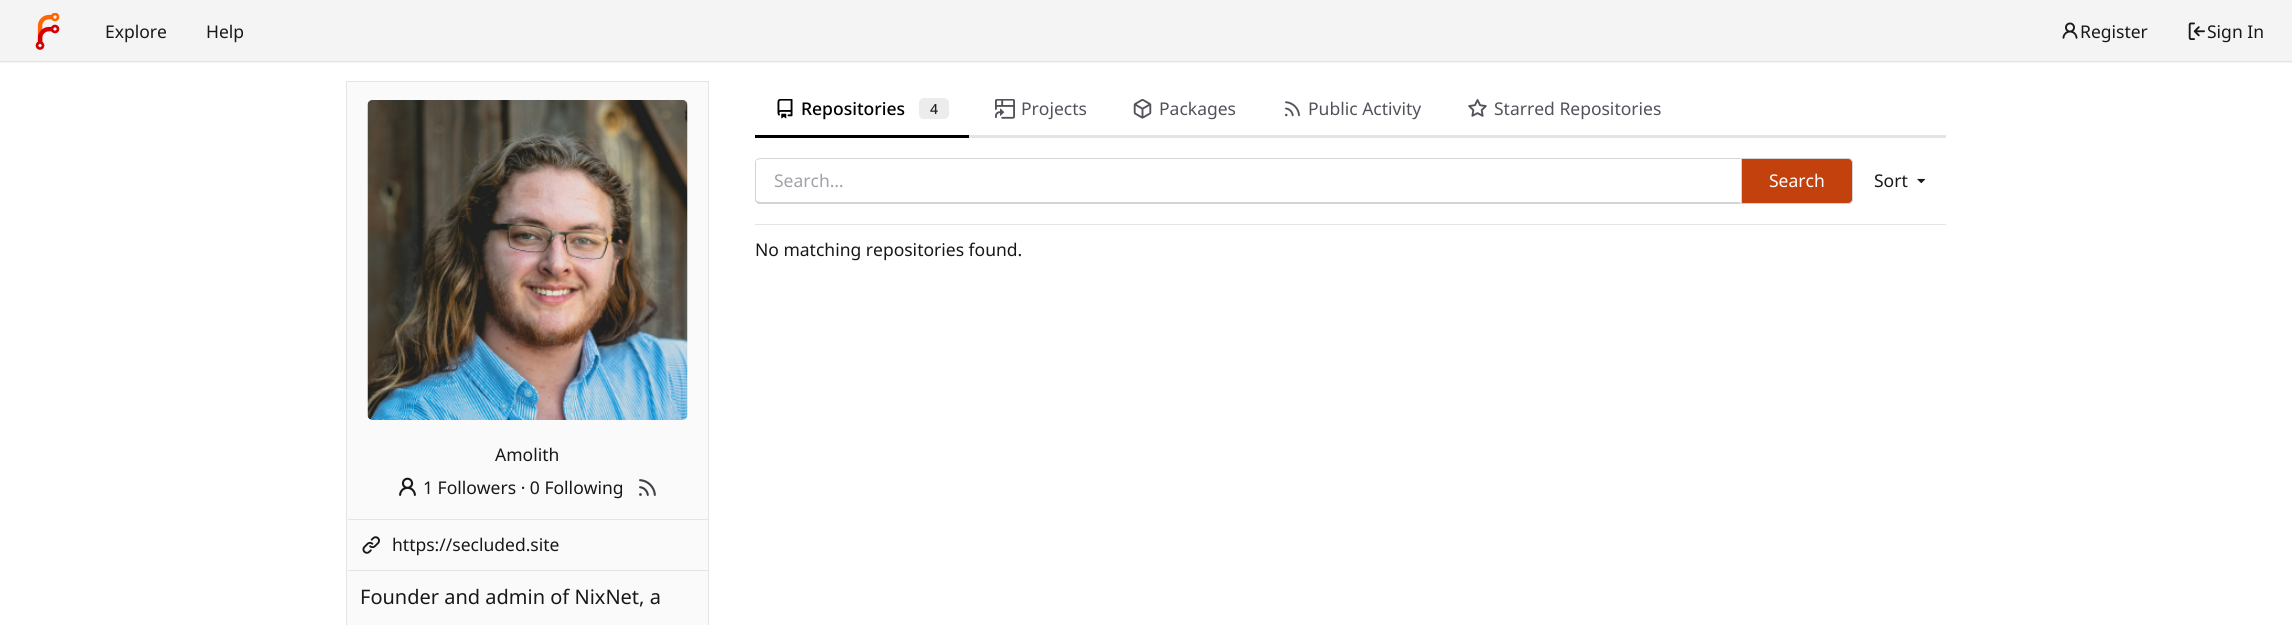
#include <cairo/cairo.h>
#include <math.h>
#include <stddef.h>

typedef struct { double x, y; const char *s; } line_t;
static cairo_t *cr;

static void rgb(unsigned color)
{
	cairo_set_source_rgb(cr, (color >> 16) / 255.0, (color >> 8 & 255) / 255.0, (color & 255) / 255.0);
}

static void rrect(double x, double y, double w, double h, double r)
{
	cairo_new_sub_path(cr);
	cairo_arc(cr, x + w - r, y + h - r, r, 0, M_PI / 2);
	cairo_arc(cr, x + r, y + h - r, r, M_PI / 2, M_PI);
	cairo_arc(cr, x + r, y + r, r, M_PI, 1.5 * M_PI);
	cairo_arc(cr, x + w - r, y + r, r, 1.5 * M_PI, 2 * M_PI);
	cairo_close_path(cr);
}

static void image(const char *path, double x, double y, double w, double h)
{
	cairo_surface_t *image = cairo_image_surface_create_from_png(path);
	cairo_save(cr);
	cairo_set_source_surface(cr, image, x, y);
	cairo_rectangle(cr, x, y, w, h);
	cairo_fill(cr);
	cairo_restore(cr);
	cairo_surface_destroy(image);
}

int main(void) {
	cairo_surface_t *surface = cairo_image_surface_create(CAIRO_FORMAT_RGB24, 2292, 625);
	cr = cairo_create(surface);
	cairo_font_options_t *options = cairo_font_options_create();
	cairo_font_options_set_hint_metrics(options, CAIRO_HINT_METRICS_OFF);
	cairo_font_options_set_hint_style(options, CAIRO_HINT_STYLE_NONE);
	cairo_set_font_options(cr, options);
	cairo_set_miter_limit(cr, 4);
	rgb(0xffffff);
	cairo_paint(cr);
	rgb(0xf4f4f5);
	cairo_rectangle(cr, 0, 0, 2292, 63);
	cairo_fill(cr);
	rgb(0xe4e4e7);
	cairo_rectangle(cr, 0, 61, 2292, 1);
	cairo_fill(cr);
	image("img/1.png", 35, 13, 25, 37);
	image("img/2.png", 2062, 22, 16, 17);
	image("img/3.png", 2188, 22, 17, 18);
	cairo_rectangle(cr, 969, 135, 977, 3);
	cairo_fill(cr);
	rgb(0x000000);
	cairo_rectangle(cr, 755, 135, 214, 3);
	cairo_fill(cr);
	image("img/4.png", 777, 99, 16, 20);
	rgb(0xececec);
	rrect(919, 98, 30, 21, 5);
	cairo_fill(cr);
	image("img/5.png", 995, 99, 20, 20);
	image("img/6.png", 1133, 99, 19, 20);
	image("img/7.png", 1285, 101, 15, 16);
	image("img/8.png", 1468, 99, 19, 18);
	rgb(0xd4d4d8);
	cairo_new_path(cr);
	cairo_move_to(cr, 760, 158);
	cairo_line_to(cr, 757, 159);
	cairo_line_to(cr, 757, 160);
	cairo_line_to(cr, 760, 159);
	cairo_line_to(cr, 1740, 159);
	cairo_line_to(cr, 1741, 158);
	cairo_close_path(cr);
	cairo_fill(cr);
	cairo_new_path(cr);
	cairo_move_to(cr, 758, 204);
	cairo_line_to(cr, 756, 202);
	cairo_line_to(cr, 757, 201);
	cairo_line_to(cr, 760, 202);
	cairo_line_to(cr, 1740, 202);
	cairo_line_to(cr, 1741, 204);
	cairo_close_path(cr);
	cairo_fill(cr);
	cairo_new_path(cr);
	cairo_move_to(cr, 755, 162);
	cairo_line_to(cr, 755, 199);
	cairo_curve_to(cr, 755, 200, 755, 202, 756, 202);
	cairo_line_to(cr, 757, 201);
	cairo_curve_to(cr, 757, 201, 756, 200, 756, 199);
	cairo_line_to(cr, 756, 162);
	cairo_curve_to(cr, 756, 161, 756, 160, 757, 160);
	cairo_line_to(cr, 757, 159);
	cairo_curve_to(cr, 756, 160, 755, 161, 755, 162);
	cairo_close_path(cr);
	cairo_fill(cr);
	rgb(0xc2410c);
	cairo_new_path(cr);
	cairo_move_to(cr, 1741.5, 158.5);
	cairo_line_to(cr, 1848, 158.5);
	cairo_curve_to(cr, 1850.5, 158.5, 1852.5, 160.5, 1852.5, 163);
	cairo_line_to(cr, 1852.5, 199);
	cairo_curve_to(cr, 1852.5, 201.5, 1850.5, 203.5, 1848, 203.5);
	cairo_line_to(cr, 1741.5, 203.5);
	cairo_close_path(cr);
	cairo_fill_preserve(cr);
	rgb(0xd4d4d8);
	cairo_set_line_width(cr, 1);
	cairo_stroke(cr);
	image("img/9.png", 1917, 178, 9, 6);
	rgb(0xe4e4e7);
	cairo_rectangle(cr, 755, 224, 1191, 1);
	cairo_fill(cr);
	rgb(0xfafafa);
	cairo_rectangle(cr, 346.5, 81.5, 362, 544);
	cairo_fill_preserve(cr);
	rgb(0xe4e4e7);
	cairo_stroke(cr);
	image("img/10.png", 367, 100, 321, 320);
	image("img/11.png", 399, 477, 17, 19);
	image("img/12.png", 639, 479, 17, 17);
	cairo_rectangle(cr, 348, 519, 360, 1);
	cairo_fill(cr);
	cairo_rectangle(cr, 348, 570, 360, 1);
	cairo_fill(cr);
	image("img/13.png", 362, 536, 18, 18);
	cairo_select_font_face(cr, "Noto Sans", CAIRO_FONT_SLANT_NORMAL, CAIRO_FONT_WEIGHT_NORMAL);
	cairo_set_font_size(cr, 17.5);
	rgb(0x18181b);
	{
		static const line_t items[] = {
			{105, 38, "Explore"},
			{206, 38, "Help"},
			{2080, 38, "Register"},
			{2207, 38, "Sign In"},
		};
		for (size_t i = 0; i < sizeof items / sizeof *items; i++) {
			cairo_move_to(cr, items[i].x, items[i].y);
			cairo_show_text(cr, items[i].s);
		}
	}
	cairo_select_font_face(cr, "Noto Sans Medium", CAIRO_FONT_SLANT_NORMAL, CAIRO_FONT_WEIGHT_NORMAL);
	rgb(0x000000);
	cairo_move_to(cr, 801, 115);
	cairo_show_text(cr, "Repositories");
	cairo_set_font_size(cr, 14);
	rgb(0x232323);
	cairo_move_to(cr, 930, 114);
	cairo_show_text(cr, "4");
	cairo_select_font_face(cr, "Noto Sans", CAIRO_FONT_SLANT_NORMAL, CAIRO_FONT_WEIGHT_NORMAL);
	cairo_set_font_size(cr, 17.5);
	rgb(0x52525b);
	{
		static const line_t items[] = {
			{1021, 115, "Projects"},
			{1159, 115, "Packages"},
			{1308, 115, "Public Activity"},
			{1494, 115, "Starred Repositories"},
		};
		for (size_t i = 0; i < sizeof items / sizeof *items; i++) {
			cairo_move_to(cr, items[i].x, items[i].y);
			cairo_show_text(cr, items[i].s);
		}
	}
	rgb(0xa1a1aa);
	cairo_move_to(cr, 774, 187);
	cairo_show_text(cr, "Search…");
	rgb(0xffffff);
	cairo_move_to(cr, 1769, 187);
	cairo_show_text(cr, "Search");
	rgb(0x18181b);
	{
		static const line_t items[] = {
			{1874, 187, "Sort"},
			{755, 256, "No matching repositories found."},
			{495, 461, "Amolith"},
			{423, 494, "1 Followers · 0 Following"},
			{392, 551, "https://secluded.site"},
		};
		for (size_t i = 0; i < sizeof items / sizeof *items; i++) {
			cairo_move_to(cr, items[i].x, items[i].y);
			cairo_show_text(cr, items[i].s);
		}
	}
	cairo_set_font_size(cr, 20);
	cairo_move_to(cr, 360, 604);
	cairo_show_text(cr, "Founder and admin of NixNet, a");
	cairo_surface_write_to_png(surface, "page.png");
	cairo_font_options_destroy(options);
	cairo_destroy(cr);
	cairo_surface_destroy(surface);
	return 0;
}
